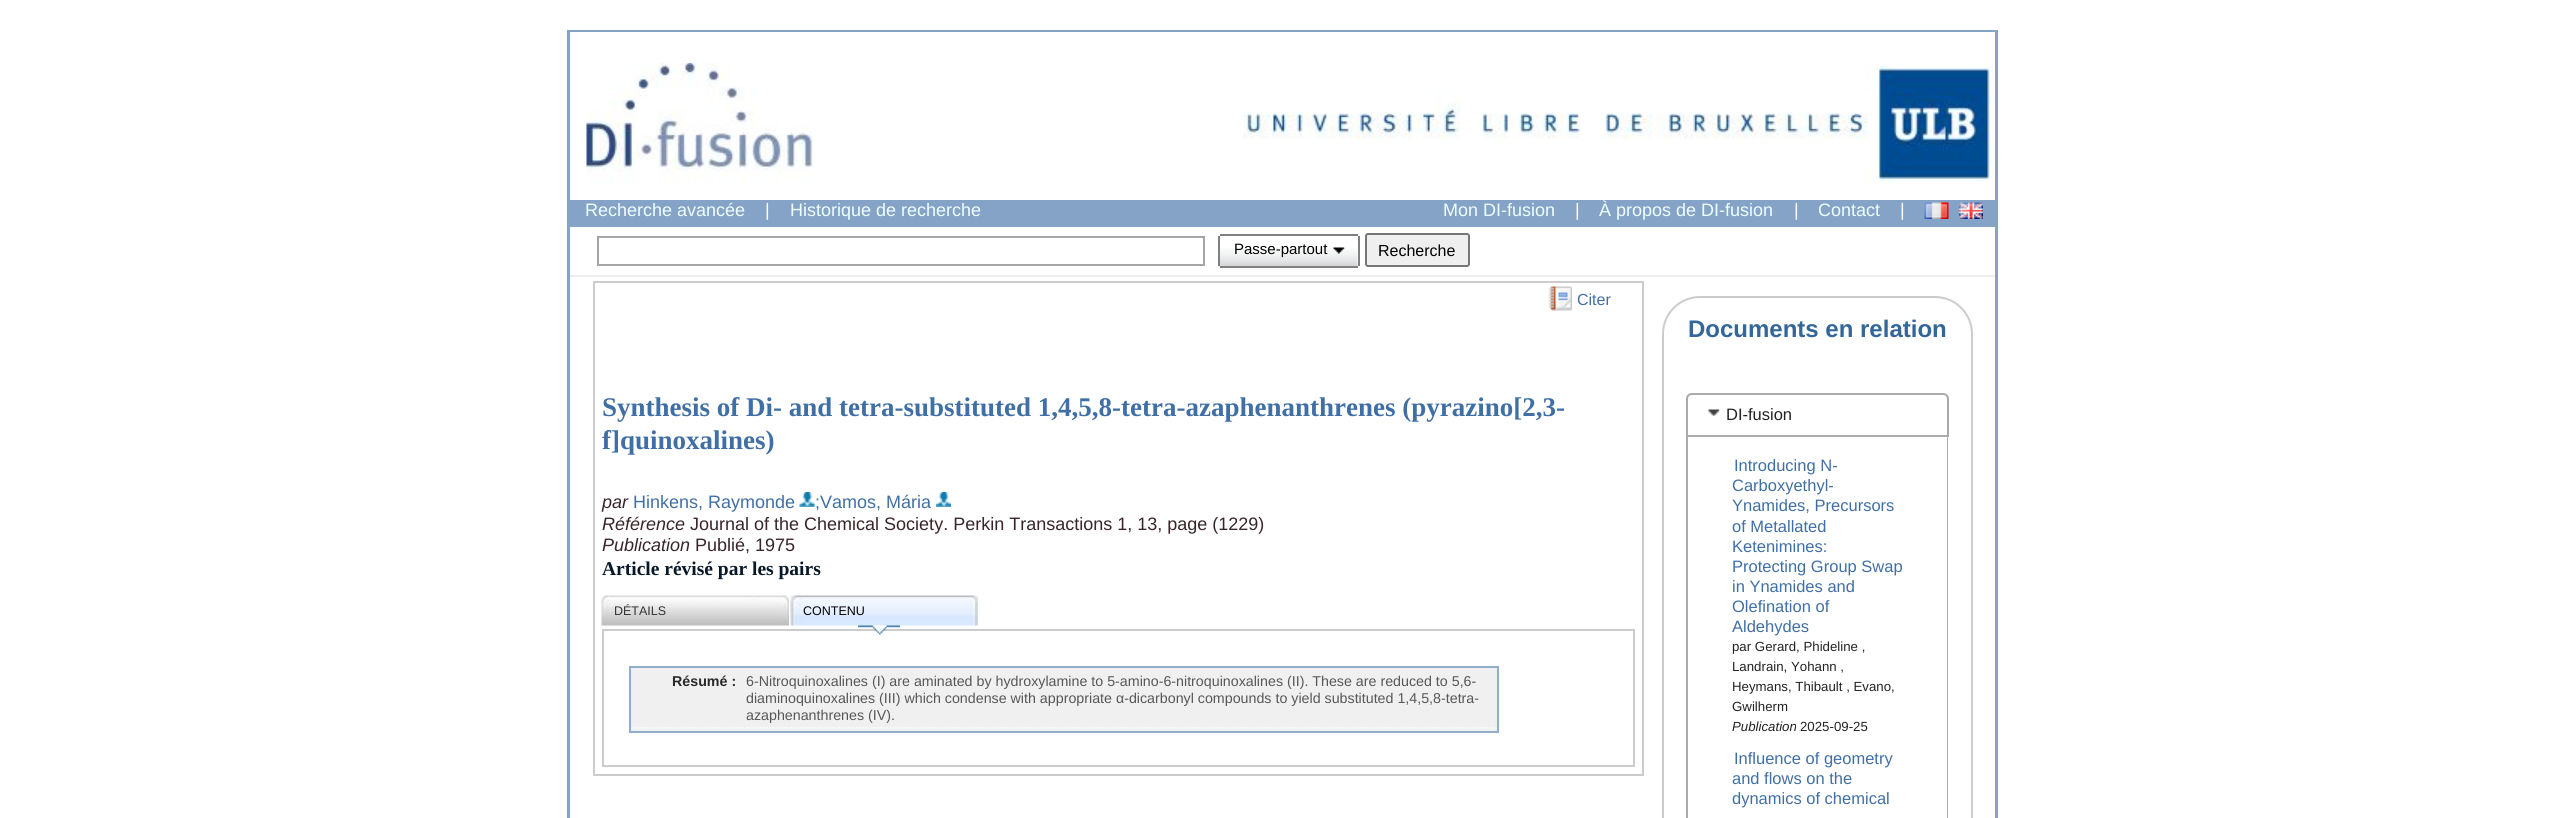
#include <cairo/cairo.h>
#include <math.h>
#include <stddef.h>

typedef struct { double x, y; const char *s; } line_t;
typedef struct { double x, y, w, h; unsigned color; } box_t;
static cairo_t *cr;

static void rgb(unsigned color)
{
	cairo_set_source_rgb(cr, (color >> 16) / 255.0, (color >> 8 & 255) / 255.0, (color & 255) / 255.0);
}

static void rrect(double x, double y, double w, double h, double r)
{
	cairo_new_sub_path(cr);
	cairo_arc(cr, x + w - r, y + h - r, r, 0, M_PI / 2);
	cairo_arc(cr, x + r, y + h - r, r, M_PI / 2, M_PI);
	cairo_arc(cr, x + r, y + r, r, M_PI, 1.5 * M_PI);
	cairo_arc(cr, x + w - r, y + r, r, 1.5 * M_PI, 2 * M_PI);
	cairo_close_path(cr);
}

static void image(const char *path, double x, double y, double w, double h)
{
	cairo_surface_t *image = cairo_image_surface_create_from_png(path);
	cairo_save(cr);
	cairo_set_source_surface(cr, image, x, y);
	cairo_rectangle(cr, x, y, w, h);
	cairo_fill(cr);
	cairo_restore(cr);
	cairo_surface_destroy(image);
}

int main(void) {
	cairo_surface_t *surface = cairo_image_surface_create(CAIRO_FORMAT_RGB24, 2565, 818);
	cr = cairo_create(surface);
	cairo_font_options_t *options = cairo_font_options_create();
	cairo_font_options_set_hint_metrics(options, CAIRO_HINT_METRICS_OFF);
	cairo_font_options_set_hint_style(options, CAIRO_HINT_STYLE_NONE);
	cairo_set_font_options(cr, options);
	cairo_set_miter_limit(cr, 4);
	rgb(0xffffff);
	cairo_paint(cr);
	rgb(0x85a3c6);
	cairo_rectangle(cr, 567, 30, 1431, 788);
	cairo_fill(cr);
	rgb(0xffffff);
	cairo_rectangle(cr, 570, 32, 1425, 786);
	cairo_fill(cr);
	image("img/1.png", 586, 63, 227, 120);
	image("img/2.png", 1243, 66, 751, 116);
	rgb(0x85a3c6);
	cairo_rectangle(cr, 570, 200, 1425, 27);
	cairo_fill(cr);
	image("img/3.png", 1924, 202, 25, 17);
	image("img/4.png", 1959, 202, 24, 17);
	cairo_rectangle(cr, 598, 237, 606, 28);
	rgb(0xa6a6a6);
	cairo_stroke(cr);
	image("img/5.png", 1219, 248, 139, 19);
	{
		static const box_t items[] = {
			{1220, 234, 138, 2, 0x808080},
			{1220, 266, 138, 2, 0x808080},
			{1358, 236, 2, 30, 0x808080},
			{1218, 236, 2, 30, 0x808080},
		};
		for (size_t i = 0; i < sizeof items / sizeof *items; i++) {
			rgb(items[i].color);
			cairo_rectangle(cr, items[i].x, items[i].y, items[i].w, items[i].h);
			cairo_fill(cr);
		}
	}
	image("img/6.png", 1333, 247, 12, 7);
	rgb(0xefefef);
	rrect(1366, 234, 103, 32, 2);
	cairo_fill_preserve(cr);
	rgb(0x767676);
	cairo_stroke(cr);
	rgb(0xeeeeee);
	cairo_rectangle(cr, 570, 275, 1425, 2);
	cairo_fill(cr);
	cairo_rectangle(cr, 594, 282, 1049, 493);
	rgb(0xcccccc);
	cairo_stroke(cr);
	image("img/7.png", 1548, 286, 24, 25);
	image("img/8.png", 799, 492, 16, 15);
	image("img/9.png", 936, 492, 15, 15);
	image("img/10.png", 601, 595, 188, 31);
	image("img/11.png", 790, 595, 188, 31);
	cairo_rectangle(cr, 603, 630, 1031, 136);
	cairo_stroke(cr);
	image("img/12.png", 858, 625, 42, 10);
	{
		static const box_t items[] = {
			{631, 668, 866, 63, 0xf0f0f0},
			{629, 666, 870, 2, 0x91accc},
			{1497, 666, 2, 66, 0x91accc},
			{629, 731, 870, 2, 0x91accc},
			{629, 666, 2, 66, 0x91accc},
		};
		for (size_t i = 0; i < sizeof items / sizeof *items; i++) {
			rgb(items[i].color);
			cairo_rectangle(cr, items[i].x, items[i].y, items[i].w, items[i].h);
			cairo_fill(cr);
		}
	}
	cairo_new_path(cr);
	cairo_move_to(cr, 631.5, 728);
	cairo_line_to(cr, 1495.5, 728);
	rgb(0xffffff);
	cairo_set_line_width(cr, 1.5);
	cairo_set_dash(cr, (double[]){1.5, 1.5}, 2, 0);
	cairo_stroke(cr);
	rrect(1663, 297, 309, 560, 37);
	rgb(0xcccccc);
	cairo_set_line_width(cr, 2);
	cairo_set_dash(cr, NULL, 0, 0);
	cairo_stroke(cr);
	rgb(0xaaaaaa);
	cairo_set_fill_rule(cr, CAIRO_FILL_RULE_EVEN_ODD);
	cairo_new_path(cr);
	cairo_move_to(cr, 1686, 436);
	cairo_line_to(cr, 1948, 436);
	cairo_line_to(cr, 1948, 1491);
	cairo_curve_to(cr, 1948, 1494, 1946, 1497, 1942, 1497);
	cairo_line_to(cr, 1692, 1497);
	cairo_curve_to(cr, 1689, 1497, 1686, 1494, 1686, 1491);
	cairo_close_path(cr);
	cairo_move_to(cr, 1688, 436);
	cairo_line_to(cr, 1947, 436);
	cairo_line_to(cr, 1947, 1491);
	cairo_curve_to(cr, 1947, 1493, 1945, 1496, 1942, 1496);
	cairo_line_to(cr, 1692, 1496);
	cairo_curve_to(cr, 1690, 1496, 1688, 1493, 1688, 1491);
	cairo_close_path(cr);
	cairo_fill(cr);
	rgb(0xffffff);
	cairo_new_path(cr);
	cairo_move_to(cr, 1692, 394);
	cairo_line_to(cr, 1943, 394);
	cairo_curve_to(cr, 1946, 394, 1948, 396, 1948, 399);
	cairo_line_to(cr, 1948, 436);
	cairo_line_to(cr, 1687, 436);
	cairo_line_to(cr, 1687, 399);
	cairo_curve_to(cr, 1687, 396, 1689, 394, 1692, 394);
	cairo_close_path(cr);
	cairo_fill_preserve(cr);
	rgb(0xaaaaaa);
	cairo_stroke(cr);
	image("img/13.png", 1708, 409, 12, 7);
	cairo_select_font_face(cr, "Liberation Sans", CAIRO_FONT_SLANT_NORMAL, CAIRO_FONT_WEIGHT_NORMAL);
	cairo_set_font_size(cr, 18);
	rgb(0xeeffff);
	cairo_move_to(cr, 585, 216);
	cairo_show_text(cr, "Recherche avancée");
	rgb(0xffffff);
	cairo_move_to(cr, 765, 216);
	cairo_show_text(cr, "|");
	rgb(0xeeffff);
	cairo_move_to(cr, 790, 216);
	cairo_show_text(cr, "Historique de recherche");
	cairo_move_to(cr, 1443, 216);
	cairo_show_text(cr, "Mon DI-fusion");
	rgb(0xffffff);
	cairo_move_to(cr, 1575, 216);
	cairo_show_text(cr, "|");
	rgb(0xeeffff);
	cairo_move_to(cr, 1599, 216);
	cairo_show_text(cr, "À propos de DI-fusion");
	rgb(0xffffff);
	cairo_move_to(cr, 1794, 216);
	cairo_show_text(cr, "|");
	rgb(0xeeffff);
	cairo_move_to(cr, 1818, 216);
	cairo_show_text(cr, "Contact");
	rgb(0xffffff);
	cairo_move_to(cr, 1900, 216);
	cairo_show_text(cr, "|");
	cairo_set_font_size(cr, 15);
	rgb(0x000000);
	cairo_move_to(cr, 1234, 254);
	cairo_show_text(cr, "Passe-partout");
	cairo_set_font_size(cr, 16);
	cairo_move_to(cr, 1378, 256);
	cairo_show_text(cr, "Recherche");
	rgb(0x406fa6);
	cairo_move_to(cr, 1577, 305);
	cairo_show_text(cr, "Citer");
	cairo_select_font_face(cr, "Liberation Serif", CAIRO_FONT_SLANT_NORMAL, CAIRO_FONT_WEIGHT_BOLD);
	cairo_set_font_size(cr, 27);
	cairo_move_to(cr, 602, 416);
	cairo_show_text(cr, "Synthesis of Di- and tetra-substituted 1,4,5,8-tetra-azaphenanthrenes (pyrazino[2,3-");
	cairo_move_to(cr, 602, 449);
	cairo_show_text(cr, "f]quinoxalines)");
	cairo_select_font_face(cr, "Liberation Sans", CAIRO_FONT_SLANT_ITALIC, CAIRO_FONT_WEIGHT_NORMAL);
	cairo_set_font_size(cr, 18);
	rgb(0x392529);
	cairo_move_to(cr, 602, 508);
	cairo_show_text(cr, "par");
	cairo_select_font_face(cr, "Liberation Sans", CAIRO_FONT_SLANT_NORMAL, CAIRO_FONT_WEIGHT_NORMAL);
	rgb(0x406fa6);
	cairo_move_to(cr, 633, 508);
	cairo_show_text(cr, "Hinkens, Raymonde");
	cairo_move_to(cr, 815, 508);
	cairo_show_text(cr, ";Vamos, Mária");
	cairo_select_font_face(cr, "Liberation Sans", CAIRO_FONT_SLANT_ITALIC, CAIRO_FONT_WEIGHT_NORMAL);
	rgb(0x392529);
	cairo_move_to(cr, 602, 530);
	cairo_show_text(cr, "Référence");
	cairo_select_font_face(cr, "Liberation Sans", CAIRO_FONT_SLANT_NORMAL, CAIRO_FONT_WEIGHT_NORMAL);
	cairo_move_to(cr, 690, 530);
	cairo_show_text(cr, "Journal of the Chemical Society. Perkin Transactions 1, 13, page (1229)");
	cairo_select_font_face(cr, "Liberation Sans", CAIRO_FONT_SLANT_ITALIC, CAIRO_FONT_WEIGHT_NORMAL);
	cairo_move_to(cr, 602, 551);
	cairo_show_text(cr, "Publication");
	cairo_select_font_face(cr, "Liberation Sans", CAIRO_FONT_SLANT_NORMAL, CAIRO_FONT_WEIGHT_NORMAL);
	cairo_move_to(cr, 695, 551);
	cairo_show_text(cr, "Publié, 1975");
	cairo_select_font_face(cr, "Liberation Serif", CAIRO_FONT_SLANT_NORMAL, CAIRO_FONT_WEIGHT_BOLD);
	cairo_set_font_size(cr, 19.5);
	rgb(0x071829);
	cairo_move_to(cr, 602, 575);
	cairo_show_text(cr, "Article révisé par les pairs");
	cairo_select_font_face(cr, "Liberation Sans", CAIRO_FONT_SLANT_NORMAL, CAIRO_FONT_WEIGHT_NORMAL);
	cairo_set_font_size(cr, 12.5);
	rgb(0x333333);
	cairo_move_to(cr, 614, 615);
	cairo_show_text(cr, "DÉTAILS");
	rgb(0x000000);
	cairo_move_to(cr, 803, 615);
	cairo_show_text(cr, "CONTENU");
	cairo_select_font_face(cr, "Liberation Sans", CAIRO_FONT_SLANT_NORMAL, CAIRO_FONT_WEIGHT_BOLD);
	cairo_set_font_size(cr, 14.25);
	rgb(0x292929);
	cairo_move_to(cr, 672, 686);
	cairo_show_text(cr, "Résumé :");
	cairo_select_font_face(cr, "Liberation Sans", CAIRO_FONT_SLANT_NORMAL, CAIRO_FONT_WEIGHT_NORMAL);
	rgb(0x575757);
	{
		static const line_t items[] = {
			{746, 686, "6-Nitroquinoxalines (I) are aminated by hydroxylamine to 5-amino-6-nitroquinoxalines (II). These are reduced to 5,6-"},
			{746, 703, "diaminoquinoxalines (III) which condense with appropriate α-dicarbonyl compounds to yield substituted 1,4,5,8-tetra-"},
			{746, 720, "azaphenanthrenes (IV)."},
		};
		for (size_t i = 0; i < sizeof items / sizeof *items; i++) {
			cairo_move_to(cr, items[i].x, items[i].y);
			cairo_show_text(cr, items[i].s);
		}
	}
	cairo_select_font_face(cr, "Liberation Sans", CAIRO_FONT_SLANT_NORMAL, CAIRO_FONT_WEIGHT_BOLD);
	cairo_set_font_size(cr, 24);
	rgb(0x336699);
	cairo_move_to(cr, 1688, 337);
	cairo_show_text(cr, "Documents en relation");
	cairo_select_font_face(cr, "Liberation Sans", CAIRO_FONT_SLANT_NORMAL, CAIRO_FONT_WEIGHT_NORMAL);
	cairo_set_font_size(cr, 16.5);
	rgb(0x222222);
	cairo_move_to(cr, 1726, 420);
	cairo_show_text(cr, "DI-fusion");
	rgb(0x406fa6);
	{
		static const line_t items[] = {
			{1734, 471, "Introducing N-"},
			{1732, 491, "Carboxyethyl-"},
			{1732, 511, "Ynamides, Precursors"},
			{1732, 532, "of Metallated"},
			{1732, 552, "Ketenimines:"},
			{1732, 572, "Protecting Group Swap"},
			{1732, 592, "in Ynamides and"},
			{1732, 612, "Olefination of"},
			{1732, 632, "Aldehydes"},
		};
		for (size_t i = 0; i < sizeof items / sizeof *items; i++) {
			cairo_move_to(cr, items[i].x, items[i].y);
			cairo_show_text(cr, items[i].s);
		}
	}
	cairo_set_font_size(cr, 13.25);
	rgb(0x222222);
	{
		static const line_t items[] = {
			{1732, 651, "par Gerard, Phideline ,"},
			{1732, 671, "Landrain, Yohann ,"},
			{1732, 691, "Heymans, Thibault , Evano,"},
			{1732, 711, "Gwilherm"},
		};
		for (size_t i = 0; i < sizeof items / sizeof *items; i++) {
			cairo_move_to(cr, items[i].x, items[i].y);
			cairo_show_text(cr, items[i].s);
		}
	}
	cairo_select_font_face(cr, "Liberation Sans", CAIRO_FONT_SLANT_ITALIC, CAIRO_FONT_WEIGHT_NORMAL);
	cairo_move_to(cr, 1732, 731);
	cairo_show_text(cr, "Publication");
	cairo_select_font_face(cr, "Liberation Sans", CAIRO_FONT_SLANT_NORMAL, CAIRO_FONT_WEIGHT_NORMAL);
	cairo_move_to(cr, 1800, 731);
	cairo_show_text(cr, "2025-09-25");
	cairo_set_font_size(cr, 16.5);
	rgb(0x406fa6);
	{
		static const line_t items[] = {
			{1734, 764, "Influence of geometry"},
			{1732, 784, "and flows on the"},
			{1732, 804, "dynamics of chemical"},
		};
		for (size_t i = 0; i < sizeof items / sizeof *items; i++) {
			cairo_move_to(cr, items[i].x, items[i].y);
			cairo_show_text(cr, items[i].s);
		}
	}
	cairo_surface_write_to_png(surface, "page.png");
	cairo_font_options_destroy(options);
	cairo_destroy(cr);
	cairo_surface_destroy(surface);
	return 0;
}
